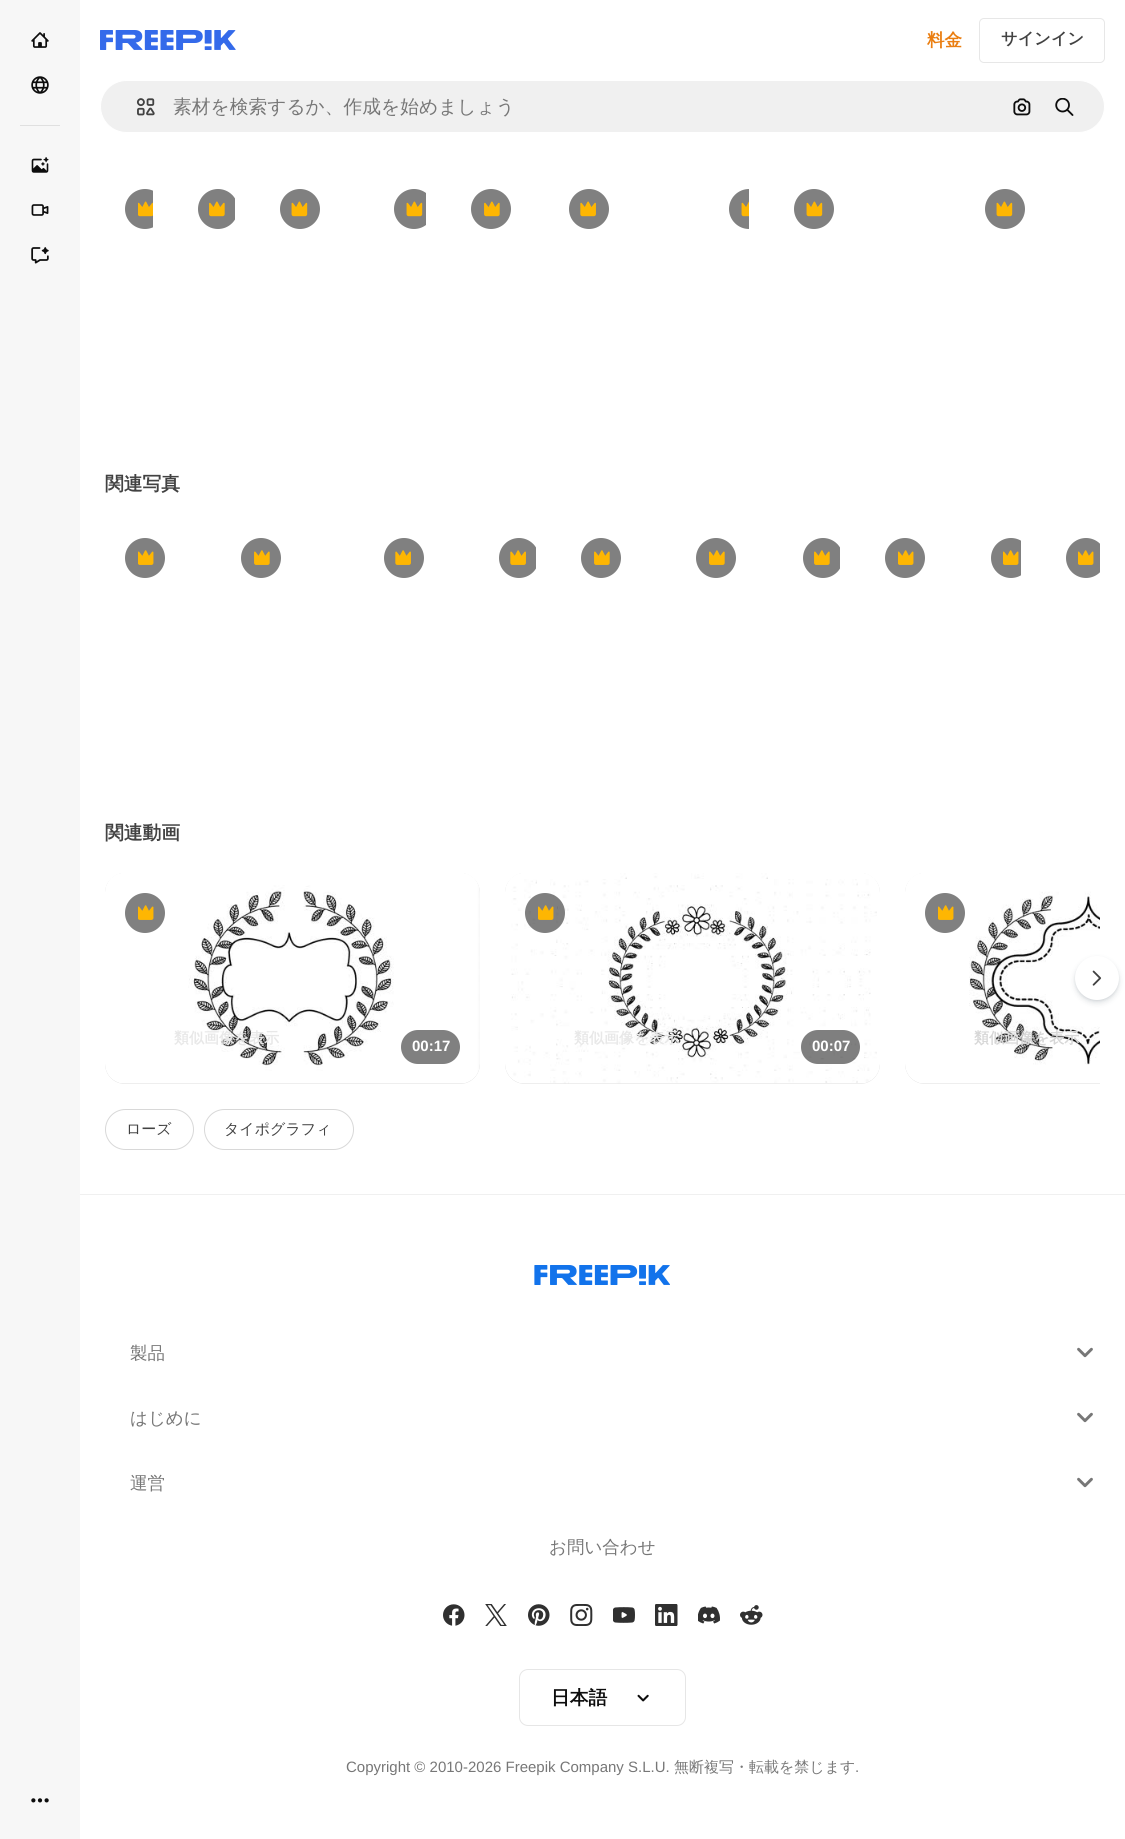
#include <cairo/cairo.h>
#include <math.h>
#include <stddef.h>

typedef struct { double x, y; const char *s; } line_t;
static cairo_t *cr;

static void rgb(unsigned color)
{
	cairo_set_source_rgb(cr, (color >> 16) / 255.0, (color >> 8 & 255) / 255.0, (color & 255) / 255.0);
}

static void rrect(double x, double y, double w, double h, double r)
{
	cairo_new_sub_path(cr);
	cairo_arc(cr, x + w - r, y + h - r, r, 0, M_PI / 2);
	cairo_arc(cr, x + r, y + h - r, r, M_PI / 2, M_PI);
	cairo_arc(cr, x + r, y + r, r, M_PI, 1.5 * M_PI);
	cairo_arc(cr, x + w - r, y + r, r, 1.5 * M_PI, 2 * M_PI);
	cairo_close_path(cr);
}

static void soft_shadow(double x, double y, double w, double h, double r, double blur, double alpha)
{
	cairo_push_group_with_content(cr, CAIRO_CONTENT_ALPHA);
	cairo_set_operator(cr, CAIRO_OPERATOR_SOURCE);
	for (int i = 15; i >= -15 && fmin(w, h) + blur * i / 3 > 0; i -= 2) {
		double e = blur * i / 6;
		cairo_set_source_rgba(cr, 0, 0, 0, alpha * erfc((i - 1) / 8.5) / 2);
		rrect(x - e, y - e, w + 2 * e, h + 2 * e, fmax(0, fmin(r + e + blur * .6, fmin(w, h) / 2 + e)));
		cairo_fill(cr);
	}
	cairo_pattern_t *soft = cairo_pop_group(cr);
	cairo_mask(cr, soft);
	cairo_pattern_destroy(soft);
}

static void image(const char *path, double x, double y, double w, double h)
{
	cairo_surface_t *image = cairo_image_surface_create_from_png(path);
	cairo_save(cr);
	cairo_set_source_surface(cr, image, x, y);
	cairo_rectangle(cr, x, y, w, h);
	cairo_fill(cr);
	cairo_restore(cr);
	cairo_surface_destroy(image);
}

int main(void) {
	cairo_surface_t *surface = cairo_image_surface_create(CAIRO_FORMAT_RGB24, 1125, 1839);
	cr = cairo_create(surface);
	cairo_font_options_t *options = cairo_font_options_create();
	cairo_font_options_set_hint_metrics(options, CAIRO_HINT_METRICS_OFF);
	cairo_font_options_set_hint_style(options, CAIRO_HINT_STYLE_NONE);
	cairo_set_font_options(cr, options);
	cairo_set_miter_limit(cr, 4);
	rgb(0xffffff);
	cairo_paint(cr);
	rgb(0xf7f7f7);
	cairo_rectangle(cr, 0, 0, 80, 1839);
	cairo_fill(cr);
	image("img/1.png", 31, 32, 18, 16);
	image("img/2.png", 31, 76, 18, 18);
	rgb(0xe0e0e0);
	cairo_rectangle(cr, 20, 125, 40, 1);
	cairo_fill(cr);
	image("img/3.png", 31, 157, 18, 16);
	image("img/4.png", 31, 204, 18, 12);
	image("img/5.png", 31, 247, 18, 17);
	image("img/6.png", 31, 1798, 18, 5);
	image("img/7.png", 100, 30, 136, 20);
	rrect(979.5, 18.5, 125, 44, 4.5);
	rgb(0xe7e7e7);
	cairo_set_line_width(cr, 1);
	cairo_stroke(cr);
	rgb(0xf0f0f0);
	rrect(100.5, 80.5, 1004, 52, 26);
	cairo_fill_preserve(cr);
	rgb(0xffffff);
	cairo_stroke(cr);
	image("img/8.png", 136, 98, 19, 18);
	image("img/9.png", 1013, 98, 18, 18);
	image("img/10.png", 1055, 98, 19, 18);
	cairo_save(cr);
	rrect(105, 169, 48, 250, 20);
	cairo_clip(cr);
	rgb(0x808080);
	cairo_arc(cr, 145, 209, 20, 0, 2 * M_PI);
	cairo_fill(cr);
	cairo_restore(cr);
	image("img/11.png", 138, 201, 15, 16);
	cairo_save(cr);
	rrect(178, 169, 57, 250, 20);
	cairo_clip(cr);
	rgb(0x808080);
	cairo_arc(cr, 218, 209, 20, 0, 2 * M_PI);
	cairo_fill(cr);
	cairo_restore(cr);
	image("img/12.png", 209, 201, 16, 16);
	rgb(0x808080);
	cairo_arc(cr, 300, 209, 20, 0, 2 * M_PI);
	cairo_fill(cr);
	image("img/13.png", 291, 201, 17, 16);
	cairo_save(cr);
	rrect(374, 169, 52, 250, 20);
	cairo_clip(cr);
	cairo_arc(cr, 414, 209, 20, 0, 2 * M_PI);
	cairo_fill(cr);
	cairo_restore(cr);
	image("img/13.png", 406, 201, 17, 16);
	cairo_arc(cr, 491, 209, 20, 0, 2 * M_PI);
	cairo_fill(cr);
	image("img/12.png", 484, 201, 16, 16);
	cairo_arc(cr, 589, 209, 20, 0, 2 * M_PI);
	cairo_fill(cr);
	image("img/14.png", 580, 201, 16, 16);
	cairo_new_path(cr);
	cairo_move_to(cr, 749, 189);
	cairo_line_to(cr, 749, 229);
	cairo_curve_to(cr, 738, 229, 729, 220, 729, 209);
	cairo_curve_to(cr, 729, 198, 738, 189, 749, 189);
	cairo_close_path(cr);
	cairo_fill(cr);
	image("img/15.png", 741, 201, 8, 16);
	cairo_arc(cr, 814, 209, 20, 0, 2 * M_PI);
	cairo_fill(cr);
	image("img/13.png", 806, 201, 17, 16);
	cairo_arc(cr, 1005, 209, 20, 0, 2 * M_PI);
	cairo_fill(cr);
	image("img/13.png", 996, 201, 17, 16);
	cairo_arc(cr, 145, 558, 20, 0, 2 * M_PI);
	cairo_fill(cr);
	image("img/16.png", 138, 550, 16, 15);
	cairo_arc(cr, 261, 558, 20, 0, 2 * M_PI);
	cairo_fill(cr);
	image("img/17.png", 254, 550, 16, 15);
	cairo_arc(cr, 404, 558, 20, 0, 2 * M_PI);
	cairo_fill(cr);
	image("img/18.png", 395, 550, 16, 15);
	cairo_save(cr);
	rrect(479, 518, 57, 250, 20);
	cairo_clip(cr);
	cairo_arc(cr, 519, 558, 20, 0, 2 * M_PI);
	cairo_fill(cr);
	cairo_restore(cr);
	image("img/18.png", 510, 550, 16, 15);
	cairo_arc(cr, 601, 558, 20, 0, 2 * M_PI);
	cairo_fill(cr);
	image("img/17.png", 594, 550, 16, 15);
	cairo_arc(cr, 716, 558, 20, 0, 2 * M_PI);
	cairo_fill(cr);
	image("img/17.png", 709, 550, 16, 15);
	cairo_save(cr);
	rrect(783, 518, 57, 250, 20);
	cairo_clip(cr);
	cairo_arc(cr, 823, 558, 20, 0, 2 * M_PI);
	cairo_fill(cr);
	cairo_restore(cr);
	image("img/17.png", 814, 550, 16, 15);
	cairo_arc(cr, 905, 558, 20, 0, 2 * M_PI);
	cairo_fill(cr);
	image("img/16.png", 898, 550, 16, 15);
	cairo_save(cr);
	rrect(971, 518, 50, 250, 20);
	cairo_clip(cr);
	cairo_arc(cr, 1011, 558, 20, 0, 2 * M_PI);
	cairo_fill(cr);
	cairo_restore(cr);
	image("img/16.png", 1003, 550, 16, 15);
	cairo_save(cr);
	rrect(1046, 518, 54, 250, 20);
	cairo_clip(cr);
	cairo_arc(cr, 1086, 558, 20, 0, 2 * M_PI);
	cairo_fill(cr);
	cairo_restore(cr);
	image("img/16.png", 1078, 550, 16, 15);
	rgb(0xe6e6e6);
	cairo_new_path(cr);
	cairo_move_to(cr, 925, 873);
	cairo_line_to(cr, 1100, 873);
	cairo_line_to(cr, 1100, 1084);
	cairo_line_to(cr, 925, 1084);
	cairo_curve_to(cr, 914, 1084, 905, 1075, 905, 1064);
	cairo_line_to(cr, 905, 893);
	cairo_curve_to(cr, 905, 882, 914, 873, 925, 873);
	cairo_close_path(cr);
	cairo_fill(cr);
	image("img/23.png", 905, 873, 195, 211);
	rgb(0x374957);
	soft_shadow(1075, 959, 44, 44, 22, 3, 0.15);
	soft_shadow(1075, 958, 44, 43, 21.5, 1, 0.1);
	rgb(0xffffff);
	cairo_arc(cr, 1097, 978, 22, 0, 2 * M_PI);
	cairo_fill(cr);
	image("img/19.png", 1092, 970, 10, 16);
	rgb(0xe6e6e6);
	rrect(105, 873, 375, 211, 20);
	cairo_fill(cr);
	image("img/20.png", 105, 873, 375, 211);
	rgb(0x808080);
	cairo_arc(cr, 145, 913, 20, 0, 2 * M_PI);
	cairo_fill(cr);
	image("img/16.png", 138, 905, 16, 15);
	rrect(401, 1030, 59, 34, 17);
	cairo_fill(cr);
	rgb(0xe6e6e6);
	rrect(505, 873, 375, 211, 20);
	cairo_fill(cr);
	image("img/22.png", 505, 873, 375, 211);
	cairo_set_source_rgba(cr, 0, 0, 0, 0.5);
	cairo_arc(cr, 545, 913, 20, 0, 2 * M_PI);
	cairo_fill(cr);
	image("img/21.png", 538, 905, 16, 15);
	rrect(801, 1030, 59, 34, 17);
	cairo_fill(cr);
	rgb(0x808080);
	cairo_arc(cr, 945, 913, 20, 0, 2 * M_PI);
	cairo_fill(cr);
	image("img/16.png", 938, 905, 16, 15);
	rrect(105.5, 1109.5, 88, 40, 20);
	rgb(0xd8d8d8);
	cairo_stroke(cr);
	rrect(204.5, 1109.5, 149, 40, 20);
	cairo_stroke(cr);
	rgb(0xf0f0f0);
	cairo_rectangle(cr, 80, 1194, 1045, 1);
	cairo_fill(cr);
	image("img/24.png", 534, 1265, 136, 20);
	image("img/25.png", 1077, 1347, 16, 11);
	image("img/25.png", 1077, 1412, 16, 11);
	image("img/25.png", 1077, 1477, 16, 11);
	image("img/26.png", 443, 1604, 22, 22);
	image("img/27.png", 485, 1604, 22, 22);
	image("img/28.png", 528, 1604, 22, 22);
	image("img/29.png", 570, 1604, 23, 22);
	image("img/30.png", 613, 1607, 22, 16);
	image("img/31.png", 655, 1604, 23, 22);
	image("img/32.png", 698, 1606, 22, 18);
	image("img/33.png", 740, 1605, 23, 20);
	rrect(519.5, 1669.5, 166, 56, 8.5);
	rgb(0xe6e6e6);
	cairo_stroke(cr);
	image("img/34.png", 637, 1694, 12, 8);
	cairo_select_font_face(cr, "WenQuanYi Zen Hei", CAIRO_FONT_SLANT_NORMAL, CAIRO_FONT_WEIGHT_BOLD);
	cairo_set_font_size(cr, 17.5);
	rgb(0xea7e11);
	cairo_move_to(cr, 927, 46);
	cairo_show_text(cr, "料金");
	cairo_set_font_size(cr, 16.25);
	rgb(0x424242);
	cairo_move_to(cr, 1001, 44);
	cairo_show_text(cr, "サインイン");
	cairo_select_font_face(cr, "WenQuanYi Zen Hei Medium", CAIRO_FONT_SLANT_NORMAL, CAIRO_FONT_WEIGHT_NORMAL);
	cairo_set_font_size(cr, 18.75);
	rgb(0x777777);
	cairo_move_to(cr, 173, 113);
	cairo_show_text(cr, "素材を検索するか、作成を始めましょう");
	cairo_select_font_face(cr, "WenQuanYi Zen Hei", CAIRO_FONT_SLANT_NORMAL, CAIRO_FONT_WEIGHT_BOLD);
	rgb(0x424242);
	cairo_move_to(cr, 105, 490);
	cairo_show_text(cr, "関連写真");
	cairo_move_to(cr, 105, 839);
	cairo_show_text(cr, "関連動画");
	cairo_set_font_size(cr, 15);
	rgb(0xe8e8e8);
	cairo_move_to(cr, 174, 1043);
	cairo_show_text(cr, "類似画像を表示");
	cairo_select_font_face(cr, "Liberation Sans", CAIRO_FONT_SLANT_NORMAL, CAIRO_FONT_WEIGHT_BOLD);
	rgb(0xffffff);
	cairo_move_to(cr, 412, 1051);
	cairo_show_text(cr, "00:17");
	cairo_select_font_face(cr, "WenQuanYi Zen Hei", CAIRO_FONT_SLANT_NORMAL, CAIRO_FONT_WEIGHT_BOLD);
	rgb(0xe8e8e8);
	cairo_move_to(cr, 574, 1043);
	cairo_show_text(cr, "類似画像を表示");
	cairo_select_font_face(cr, "Liberation Sans", CAIRO_FONT_SLANT_NORMAL, CAIRO_FONT_WEIGHT_BOLD);
	rgb(0xffffff);
	cairo_move_to(cr, 812, 1051);
	cairo_show_text(cr, "00:07");
	cairo_select_font_face(cr, "WenQuanYi Zen Hei", CAIRO_FONT_SLANT_NORMAL, CAIRO_FONT_WEIGHT_BOLD);
	rgb(0xd7d7d7);
	cairo_move_to(cr, 974, 1043);
	cairo_show_text(cr, "類似画像を表示");
	cairo_select_font_face(cr, "WenQuanYi Zen Hei Medium", CAIRO_FONT_SLANT_NORMAL, CAIRO_FONT_WEIGHT_NORMAL);
	rgb(0x424242);
	cairo_move_to(cr, 126, 1134);
	cairo_show_text(cr, "ローズ");
	cairo_move_to(cr, 224, 1134);
	cairo_show_text(cr, "タイポグラフィ");
	cairo_set_font_size(cr, 17.5);
	rgb(0x777777);
	{
		static const line_t items[] = {
			{130, 1359, "製品"},
			{130, 1424, "はじめに"},
			{130, 1489, "運営"},
			{549, 1553, "お問い合わせ"},
		};
		for (size_t i = 0; i < sizeof items / sizeof *items; i++) {
			cairo_move_to(cr, items[i].x, items[i].y);
			cairo_show_text(cr, items[i].s);
		}
	}
	cairo_select_font_face(cr, "WenQuanYi Zen Hei", CAIRO_FONT_SLANT_NORMAL, CAIRO_FONT_WEIGHT_BOLD);
	cairo_set_font_size(cr, 18.75);
	rgb(0x0d0d0d);
	cairo_move_to(cr, 551, 1704);
	cairo_show_text(cr, "日本語");
	cairo_select_font_face(cr, "Liberation Sans", CAIRO_FONT_SLANT_NORMAL, CAIRO_FONT_WEIGHT_NORMAL);
	cairo_set_font_size(cr, 15);
	rgb(0x777777);
	cairo_move_to(cr, 346, 1772);
	cairo_show_text(cr, "Copyright © 2010-2026 Freepik Company S.L.U.");
	cairo_select_font_face(cr, "WenQuanYi Zen Hei Medium", CAIRO_FONT_SLANT_NORMAL, CAIRO_FONT_WEIGHT_NORMAL);
	cairo_move_to(cr, 674, 1772);
	cairo_show_text(cr, "無断複写・転載を禁じます");
	cairo_select_font_face(cr, "Liberation Sans", CAIRO_FONT_SLANT_NORMAL, CAIRO_FONT_WEIGHT_NORMAL);
	cairo_move_to(cr, 855, 1772);
	cairo_show_text(cr, ".");
	cairo_surface_write_to_png(surface, "page.png");
	cairo_font_options_destroy(options);
	cairo_destroy(cr);
	cairo_surface_destroy(surface);
	return 0;
}
